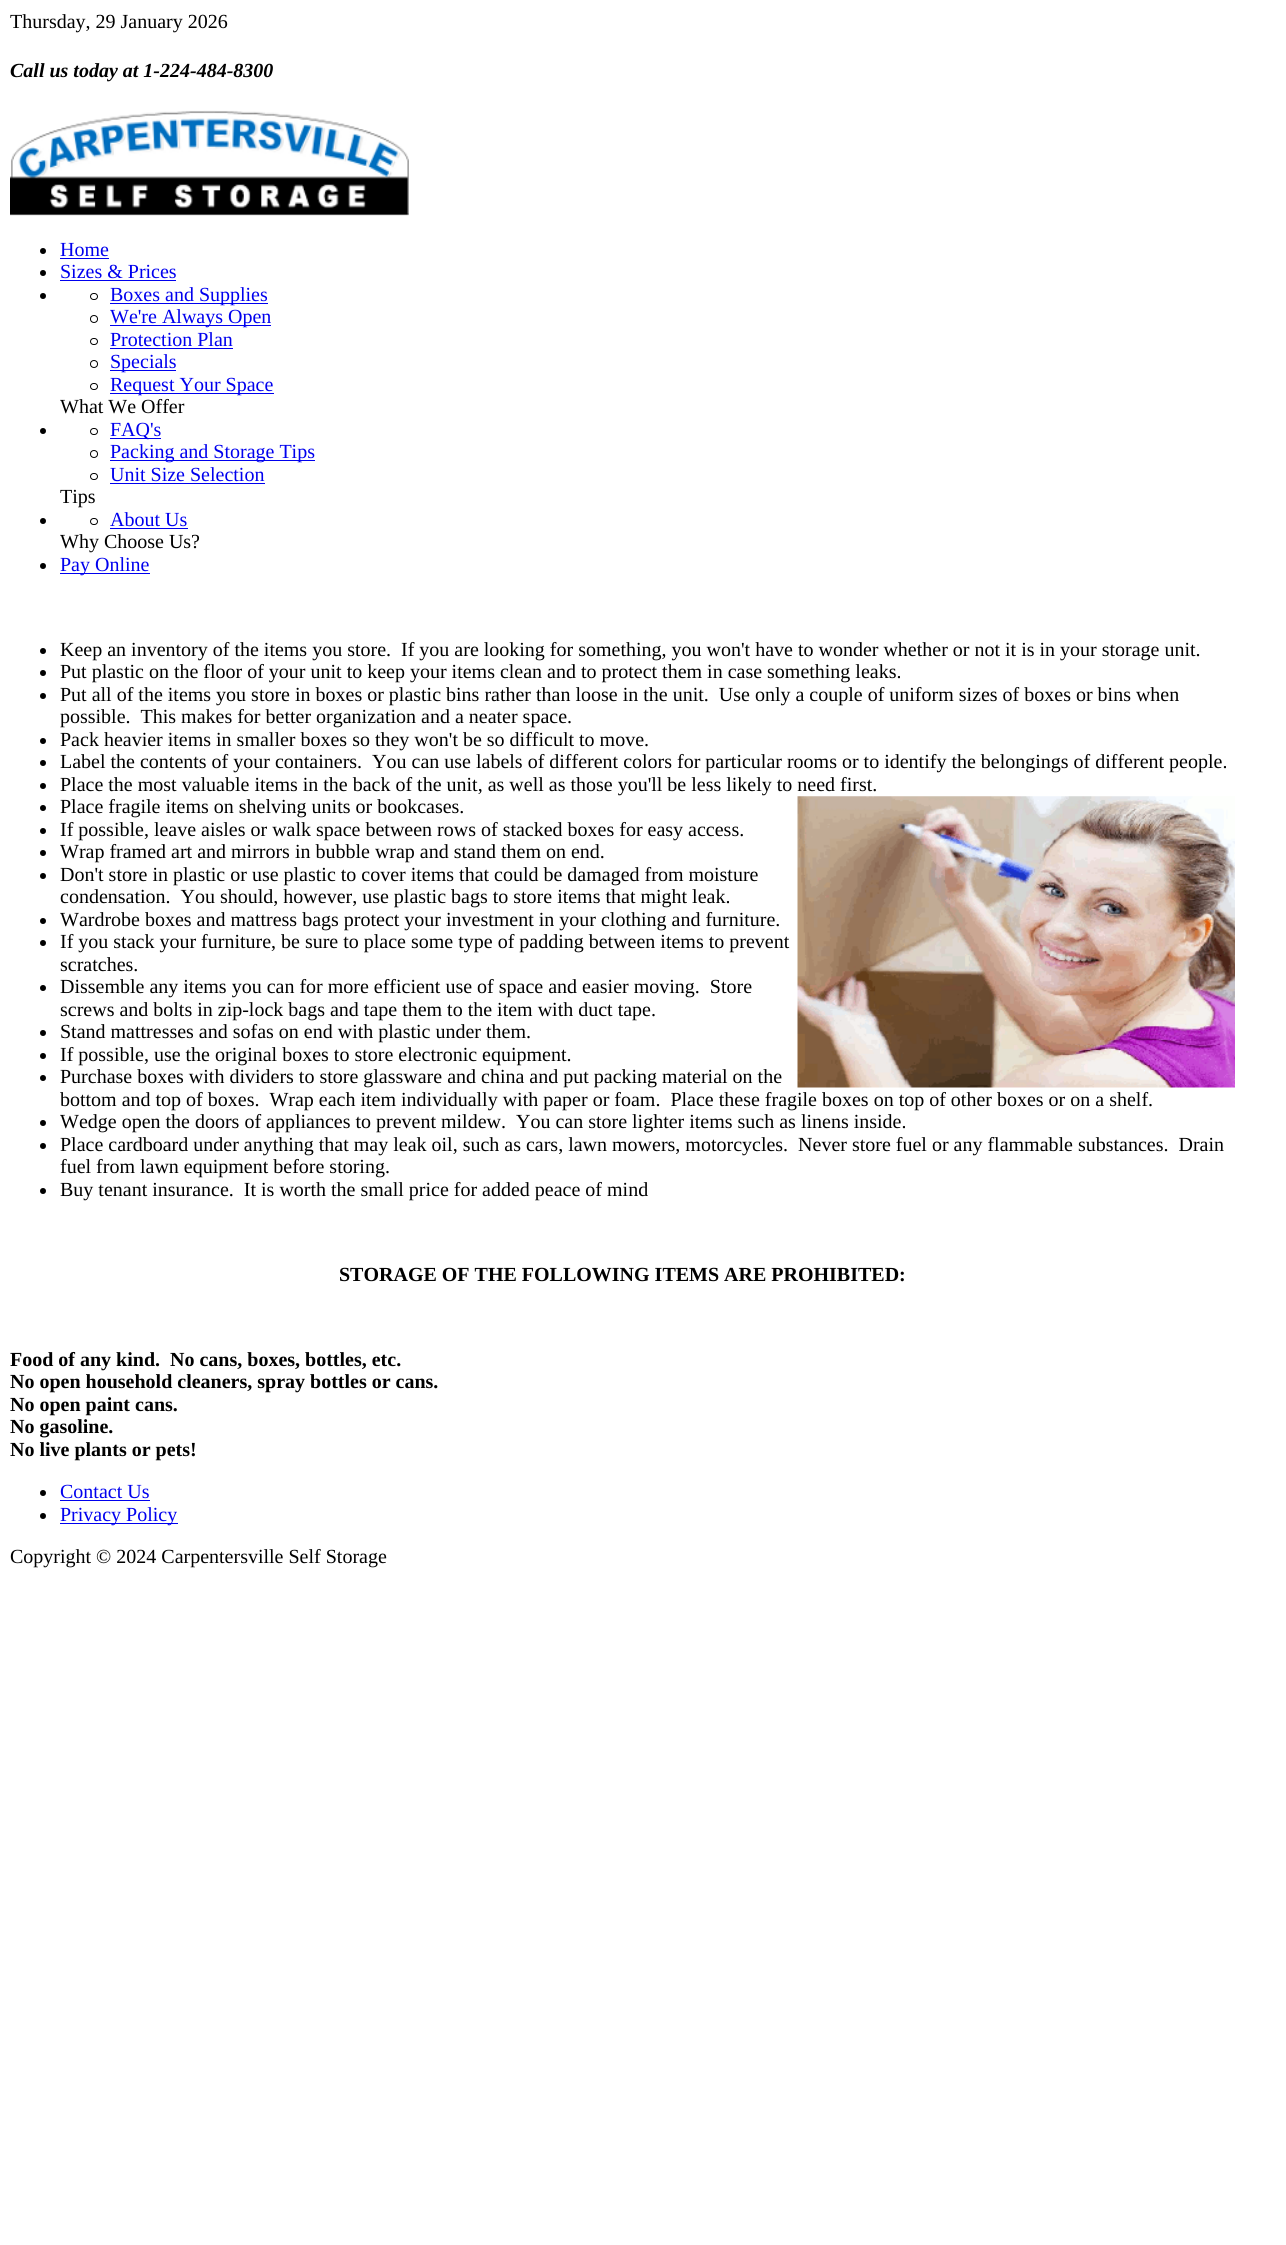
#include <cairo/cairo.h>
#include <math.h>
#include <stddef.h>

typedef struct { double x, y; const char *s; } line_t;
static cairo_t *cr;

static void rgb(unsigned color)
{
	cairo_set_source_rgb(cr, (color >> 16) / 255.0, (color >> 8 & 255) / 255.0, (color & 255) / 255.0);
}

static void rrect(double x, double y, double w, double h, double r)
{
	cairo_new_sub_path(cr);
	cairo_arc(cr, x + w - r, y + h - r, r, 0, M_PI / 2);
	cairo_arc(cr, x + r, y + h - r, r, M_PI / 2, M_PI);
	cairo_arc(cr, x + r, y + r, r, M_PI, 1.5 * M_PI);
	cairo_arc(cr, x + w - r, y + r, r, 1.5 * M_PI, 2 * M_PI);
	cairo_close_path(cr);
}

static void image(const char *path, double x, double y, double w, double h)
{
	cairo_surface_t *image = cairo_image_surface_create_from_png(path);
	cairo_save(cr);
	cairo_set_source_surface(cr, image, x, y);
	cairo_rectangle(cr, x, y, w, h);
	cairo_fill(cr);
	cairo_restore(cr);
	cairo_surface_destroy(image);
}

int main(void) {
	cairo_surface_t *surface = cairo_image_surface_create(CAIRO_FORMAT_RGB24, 1286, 2245);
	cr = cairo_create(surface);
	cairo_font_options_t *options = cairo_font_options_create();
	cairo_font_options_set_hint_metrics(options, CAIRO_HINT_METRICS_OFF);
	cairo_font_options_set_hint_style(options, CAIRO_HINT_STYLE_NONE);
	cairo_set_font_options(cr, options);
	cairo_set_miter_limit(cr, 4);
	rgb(0xffffff);
	cairo_paint(cr);
	image("img/1.png", 10, 110, 399, 106);
	rgb(0x000000);
	cairo_arc(cr, 43, 251, 3, 0, 2 * M_PI);
	cairo_fill(cr);
	rgb(0x0000ee);
	cairo_rectangle(cr, 60, 258, 49, 1);
	cairo_fill(cr);
	rgb(0x000000);
	cairo_arc(cr, 43, 273, 3, 0, 2 * M_PI);
	cairo_fill(cr);
	rgb(0x0000ee);
	cairo_rectangle(cr, 60, 280, 116, 1);
	cairo_fill(cr);
	rgb(0x000000);
	cairo_arc(cr, 43, 296, 3, 0, 2 * M_PI);
	cairo_fill(cr);
	rrect(90.5, 293.5, 7, 6, 3);
	cairo_set_line_width(cr, 1);
	cairo_stroke(cr);
	rgb(0x0000ee);
	cairo_rectangle(cr, 110, 303, 158, 1);
	cairo_fill(cr);
	cairo_arc(cr, 94, 319, 3.5, 0, 2 * M_PI);
	rgb(0x000000);
	cairo_stroke(cr);
	rgb(0x0000ee);
	cairo_rectangle(cr, 110, 325, 161, 1);
	cairo_fill(cr);
	rrect(90.5, 338.5, 7, 6, 3);
	rgb(0x000000);
	cairo_stroke(cr);
	rgb(0x0000ee);
	cairo_rectangle(cr, 110, 348, 123, 1);
	cairo_fill(cr);
	cairo_arc(cr, 94, 364, 3.5, 0, 2 * M_PI);
	rgb(0x000000);
	cairo_stroke(cr);
	rgb(0x0000ee);
	cairo_rectangle(cr, 110, 370, 66, 1);
	cairo_fill(cr);
	rrect(90.5, 383.5, 7, 6, 3);
	rgb(0x000000);
	cairo_stroke(cr);
	rgb(0x0000ee);
	cairo_rectangle(cr, 110, 393, 164, 1);
	cairo_fill(cr);
	rgb(0x000000);
	cairo_arc(cr, 43, 431, 3, 0, 2 * M_PI);
	cairo_fill(cr);
	rrect(90.5, 428.5, 7, 6, 3);
	cairo_stroke(cr);
	rgb(0x0000ee);
	cairo_rectangle(cr, 110, 438, 51, 1);
	cairo_fill(cr);
	cairo_arc(cr, 94, 454, 3.5, 0, 2 * M_PI);
	rgb(0x000000);
	cairo_stroke(cr);
	rgb(0x0000ee);
	cairo_rectangle(cr, 110, 460, 205, 1);
	cairo_fill(cr);
	rrect(90.5, 473.5, 7, 6, 3);
	rgb(0x000000);
	cairo_stroke(cr);
	rgb(0x0000ee);
	cairo_rectangle(cr, 110, 483, 155, 1);
	cairo_fill(cr);
	rgb(0x000000);
	cairo_arc(cr, 43, 521, 3, 0, 2 * M_PI);
	cairo_fill(cr);
	rrect(90.5, 518.5, 7, 6, 3);
	cairo_stroke(cr);
	rgb(0x0000ee);
	cairo_rectangle(cr, 110, 528, 78, 1);
	cairo_fill(cr);
	rgb(0x000000);
	cairo_arc(cr, 43, 566, 3, 0, 2 * M_PI);
	cairo_fill(cr);
	rgb(0x0000ee);
	cairo_rectangle(cr, 60, 573, 90, 1);
	cairo_fill(cr);
	rgb(0x000000);
	cairo_arc(cr, 43, 651, 3, 0, 2 * M_PI);
	cairo_fill(cr);
	cairo_arc(cr, 43, 673, 3, 0, 2 * M_PI);
	cairo_fill(cr);
	cairo_arc(cr, 43, 696, 3, 0, 2 * M_PI);
	cairo_fill(cr);
	cairo_arc(cr, 43, 741, 3, 0, 2 * M_PI);
	cairo_fill(cr);
	cairo_arc(cr, 43, 763, 3, 0, 2 * M_PI);
	cairo_fill(cr);
	cairo_arc(cr, 43, 786, 3, 0, 2 * M_PI);
	cairo_fill(cr);
	cairo_arc(cr, 43, 808, 3, 0, 2 * M_PI);
	cairo_fill(cr);
	image("img/2.png", 797, 796, 438, 292);
	cairo_arc(cr, 43, 831, 3, 0, 2 * M_PI);
	cairo_fill(cr);
	cairo_arc(cr, 43, 853, 3, 0, 2 * M_PI);
	cairo_fill(cr);
	cairo_arc(cr, 43, 876, 3, 0, 2 * M_PI);
	cairo_fill(cr);
	cairo_arc(cr, 43, 921, 3, 0, 2 * M_PI);
	cairo_fill(cr);
	cairo_arc(cr, 43, 943, 3, 0, 2 * M_PI);
	cairo_fill(cr);
	cairo_arc(cr, 43, 988, 3, 0, 2 * M_PI);
	cairo_fill(cr);
	cairo_arc(cr, 43, 1033, 3, 0, 2 * M_PI);
	cairo_fill(cr);
	cairo_arc(cr, 43, 1056, 3, 0, 2 * M_PI);
	cairo_fill(cr);
	cairo_arc(cr, 43, 1078, 3, 0, 2 * M_PI);
	cairo_fill(cr);
	cairo_arc(cr, 43, 1123, 3, 0, 2 * M_PI);
	cairo_fill(cr);
	cairo_arc(cr, 43, 1146, 3, 0, 2 * M_PI);
	cairo_fill(cr);
	cairo_arc(cr, 43, 1191, 3, 0, 2 * M_PI);
	cairo_fill(cr);
	cairo_arc(cr, 43, 1493, 3, 0, 2 * M_PI);
	cairo_fill(cr);
	rgb(0x0000ee);
	cairo_rectangle(cr, 60, 1500, 90, 1);
	cairo_fill(cr);
	rgb(0x000000);
	cairo_arc(cr, 43, 1516, 3, 0, 2 * M_PI);
	cairo_fill(cr);
	rgb(0x0000ee);
	cairo_rectangle(cr, 60, 1523, 118, 1);
	cairo_fill(cr);
	cairo_select_font_face(cr, "Liberation Serif", CAIRO_FONT_SLANT_NORMAL, CAIRO_FONT_WEIGHT_NORMAL);
	cairo_set_font_size(cr, 20);
	rgb(0x000000);
	cairo_move_to(cr, 10, 28);
	cairo_show_text(cr, "Thursday, 29 January 2026");
	cairo_select_font_face(cr, "Liberation Serif", CAIRO_FONT_SLANT_ITALIC, CAIRO_FONT_WEIGHT_BOLD);
	cairo_move_to(cr, 10, 77);
	cairo_show_text(cr, "Call us today at 1-224-484-8300");
	cairo_select_font_face(cr, "Liberation Serif", CAIRO_FONT_SLANT_NORMAL, CAIRO_FONT_WEIGHT_NORMAL);
	rgb(0x0000ee);
	{
		static const line_t items[] = {
			{60, 256, "Home"},
			{60, 278, "Sizes & Prices"},
			{110, 301, "Boxes and Supplies"},
			{110, 323, "We're Always Open"},
			{110, 346, "Protection Plan"},
			{110, 368, "Specials"},
			{110, 391, "Request Your Space"},
		};
		for (size_t i = 0; i < sizeof items / sizeof *items; i++) {
			cairo_move_to(cr, items[i].x, items[i].y);
			cairo_show_text(cr, items[i].s);
		}
	}
	rgb(0x000000);
	cairo_move_to(cr, 60, 413);
	cairo_show_text(cr, "What We Offer");
	rgb(0x0000ee);
	{
		static const line_t items[] = {
			{110, 436, "FAQ's"},
			{110, 458, "Packing and Storage Tips"},
			{110, 481, "Unit Size Selection"},
		};
		for (size_t i = 0; i < sizeof items / sizeof *items; i++) {
			cairo_move_to(cr, items[i].x, items[i].y);
			cairo_show_text(cr, items[i].s);
		}
	}
	rgb(0x000000);
	cairo_move_to(cr, 60, 503);
	cairo_show_text(cr, "Tips");
	rgb(0x0000ee);
	cairo_move_to(cr, 110, 526);
	cairo_show_text(cr, "About Us");
	rgb(0x000000);
	cairo_move_to(cr, 60, 548);
	cairo_show_text(cr, "Why Choose Us?");
	rgb(0x0000ee);
	cairo_move_to(cr, 60, 571);
	cairo_show_text(cr, "Pay Online");
	rgb(0x000000);
	{
		static const line_t items[] = {
			{60, 656, "Keep an inventory of the items you store.  If you are looking for something, you won't have to wonder whether or not it is in your storage unit."},
			{60, 678, "Put plastic on the floor of your unit to keep your items clean and to protect them in case something leaks."},
			{60, 701, "Put all of the items you store in boxes or plastic bins rather than loose in the unit.  Use only a couple of uniform sizes of boxes or bins when"},
			{60, 723, "possible.  This makes for better organization and a neater space."},
			{60, 746, "Pack heavier items in smaller boxes so they won't be so difficult to move."},
			{60, 768, "Label the contents of your containers.  You can use labels of different colors for particular rooms or to identify the belongings of different people."},
			{60, 791, "Place the most valuable items in the back of the unit, as well as those you'll be less likely to need first."},
			{60, 813, "Place fragile items on shelving units or bookcases."},
			{60, 836, "If possible, leave aisles or walk space between rows of stacked boxes for easy access."},
			{60, 858, "Wrap framed art and mirrors in bubble wrap and stand them on end."},
			{60, 881, "Don't store in plastic or use plastic to cover items that could be damaged from moisture"},
			{60, 903, "condensation.  You should, however, use plastic bags to store items that might leak."},
			{60, 926, "Wardrobe boxes and mattress bags protect your investment in your clothing and furniture."},
			{60, 948, "If you stack your furniture, be sure to place some type of padding between items to prevent"},
			{60, 971, "scratches."},
			{60, 993, "Dissemble any items you can for more efficient use of space and easier moving.  Store"},
			{60, 1016, "screws and bolts in zip-lock bags and tape them to the item with duct tape."},
			{60, 1038, "Stand mattresses and sofas on end with plastic under them."},
			{60, 1061, "If possible, use the original boxes to store electronic equipment."},
			{60, 1083, "Purchase boxes with dividers to store glassware and china and put packing material on the"},
			{60, 1106, "bottom and top of boxes.  Wrap each item individually with paper or foam.  Place these fragile boxes on top of other boxes or on a shelf."},
			{60, 1128, "Wedge open the doors of appliances to prevent mildew.  You can store lighter items such as linens inside."},
			{60, 1151, "Place cardboard under anything that may leak oil, such as cars, lawn mowers, motorcycles.  Never store fuel or any flammable substances.  Drain"},
			{60, 1173, "fuel from lawn equipment before storing."},
			{60, 1196, "Buy tenant insurance.  It is worth the small price for added peace of mind"},
		};
		for (size_t i = 0; i < sizeof items / sizeof *items; i++) {
			cairo_move_to(cr, items[i].x, items[i].y);
			cairo_show_text(cr, items[i].s);
		}
	}
	cairo_select_font_face(cr, "Liberation Serif", CAIRO_FONT_SLANT_NORMAL, CAIRO_FONT_WEIGHT_BOLD);
	{
		static const line_t items[] = {
			{339, 1281, "STORAGE OF THE FOLLOWING ITEMS ARE PROHIBITED:"},
			{10, 1366, "Food of any kind.  No cans, boxes, bottles, etc."},
			{10, 1388, "No open household cleaners, spray bottles or cans."},
			{10, 1411, "No open paint cans."},
			{10, 1433, "No gasoline."},
			{10, 1456, "No live plants or pets!"},
		};
		for (size_t i = 0; i < sizeof items / sizeof *items; i++) {
			cairo_move_to(cr, items[i].x, items[i].y);
			cairo_show_text(cr, items[i].s);
		}
	}
	cairo_select_font_face(cr, "Liberation Serif", CAIRO_FONT_SLANT_NORMAL, CAIRO_FONT_WEIGHT_NORMAL);
	rgb(0x0000ee);
	cairo_move_to(cr, 60, 1498);
	cairo_show_text(cr, "Contact Us");
	cairo_move_to(cr, 60, 1521);
	cairo_show_text(cr, "Privacy Policy");
	rgb(0x000000);
	cairo_move_to(cr, 10, 1563);
	cairo_show_text(cr, "Copyright © 2024 Carpentersville Self Storage");
	cairo_surface_write_to_png(surface, "page.png");
	cairo_font_options_destroy(options);
	cairo_destroy(cr);
	cairo_surface_destroy(surface);
	return 0;
}
